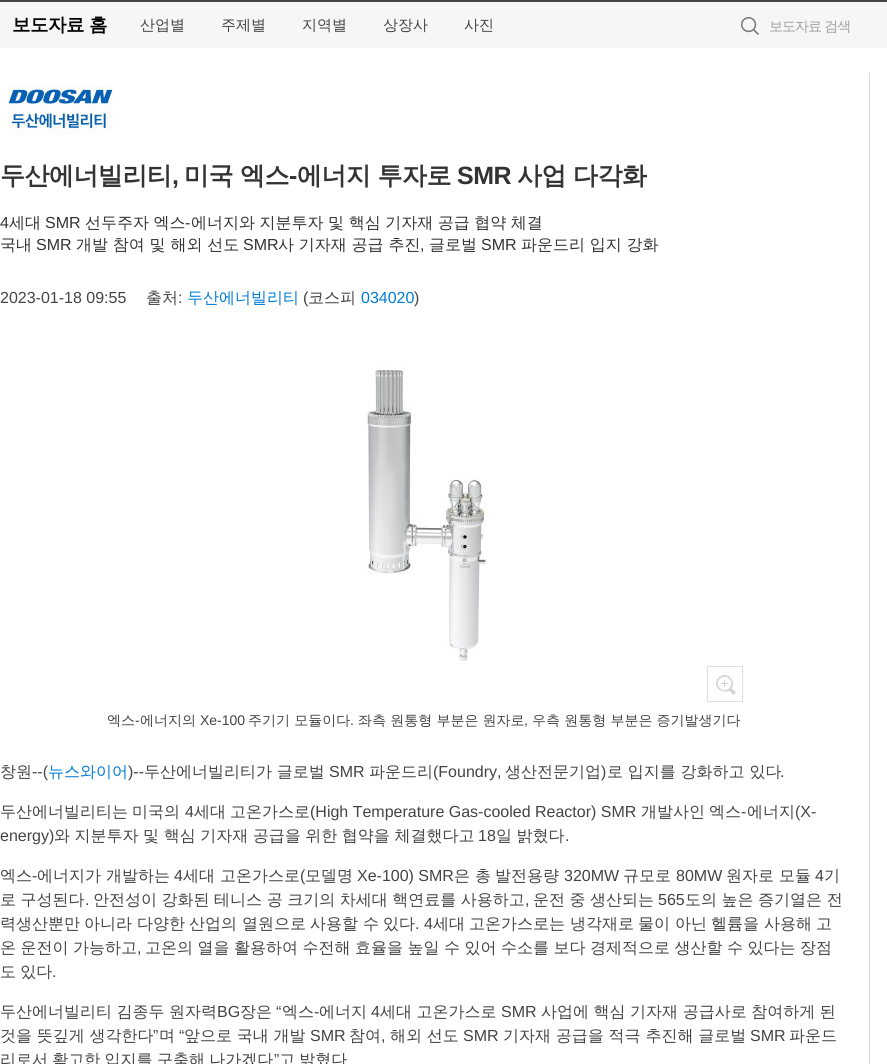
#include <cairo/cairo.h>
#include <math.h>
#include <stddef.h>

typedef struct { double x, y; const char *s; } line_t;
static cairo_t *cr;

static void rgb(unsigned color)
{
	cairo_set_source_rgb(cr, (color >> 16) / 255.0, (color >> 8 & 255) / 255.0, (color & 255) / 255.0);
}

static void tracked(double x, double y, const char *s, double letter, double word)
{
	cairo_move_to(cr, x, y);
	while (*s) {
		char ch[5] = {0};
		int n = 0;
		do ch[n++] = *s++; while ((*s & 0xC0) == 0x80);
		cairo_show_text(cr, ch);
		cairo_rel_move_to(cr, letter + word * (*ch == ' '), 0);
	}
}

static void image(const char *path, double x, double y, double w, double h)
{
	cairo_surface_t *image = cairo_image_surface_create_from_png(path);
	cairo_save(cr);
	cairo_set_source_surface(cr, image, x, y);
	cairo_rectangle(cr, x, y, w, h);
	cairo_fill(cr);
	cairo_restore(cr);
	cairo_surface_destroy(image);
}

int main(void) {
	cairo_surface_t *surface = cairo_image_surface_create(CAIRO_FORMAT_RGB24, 887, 1064);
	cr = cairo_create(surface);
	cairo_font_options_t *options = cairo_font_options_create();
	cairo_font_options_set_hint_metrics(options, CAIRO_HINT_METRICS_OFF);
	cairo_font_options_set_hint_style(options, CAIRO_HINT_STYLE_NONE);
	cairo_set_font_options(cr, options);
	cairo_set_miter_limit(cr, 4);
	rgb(0xffffff);
	cairo_paint(cr);
	rgb(0xf5f6f7);
	cairo_rectangle(cr, 0, 2, 887, 46);
	cairo_fill(cr);
	rgb(0x424445);
	cairo_rectangle(cr, 0, 0, 887, 2);
	cairo_fill(cr);
	image("img/1.png", 741, 17, 18, 18);
	rgb(0xdbdbdb);
	cairo_rectangle(cr, 869, 73, 1, 991);
	cairo_fill(cr);
	image("img/2.png", 8, 86, 106, 48);
	image("img/3.png", 367, 367, 120, 295);
	image("img/4.png", 716, 675, 20, 20);
	cairo_rectangle(cr, 707.5, 666.5, 35, 35);
	rgb(0xe0e0e0);
	cairo_set_line_width(cr, 1);
	cairo_stroke(cr);
	cairo_select_font_face(cr, "WenQuanYi Zen Hei", CAIRO_FONT_SLANT_NORMAL, CAIRO_FONT_WEIGHT_BOLD);
	cairo_set_font_size(cr, 18.5);
	rgb(0x000000);
	tracked(12, 31, "보도자료 홈", -0.5, 0);
	cairo_select_font_face(cr, "WenQuanYi Zen Hei Medium", CAIRO_FONT_SLANT_NORMAL, CAIRO_FONT_WEIGHT_NORMAL);
	cairo_set_font_size(cr, 15);
	rgb(0x444444);
	{
		static const line_t items[] = {
			{140, 30, "산업별"},
			{221, 30, "주제별"},
			{302, 30, "지역별"},
			{383, 30, "상장사"},
			{464, 30, "사진"},
		};
		for (size_t i = 0; i < sizeof items / sizeof *items; i++) {
			cairo_move_to(cr, items[i].x, items[i].y);
			cairo_show_text(cr, items[i].s);
		}
	}
	cairo_set_font_size(cr, 14);
	rgb(0x9fa0a0);
	tracked(769, 31, "보도자료 검색", -1, 0);
	cairo_select_font_face(cr, "WenQuanYi Zen Hei", CAIRO_FONT_SLANT_NORMAL, CAIRO_FONT_WEIGHT_BOLD);
	cairo_set_font_size(cr, 25);
	rgb(0x333333);
	tracked(0, 184, "두산에너빌리티", -0.5, 0);
	tracked(184, 184, "미국 엑스", -0.5, 0);
	cairo_select_font_face(cr, "Liberation Sans", CAIRO_FONT_SLANT_NORMAL, CAIRO_FONT_WEIGHT_BOLD);
	tracked(289, 184, "-", -0.5, 0);
	cairo_select_font_face(cr, "WenQuanYi Zen Hei", CAIRO_FONT_SLANT_NORMAL, CAIRO_FONT_WEIGHT_BOLD);
	tracked(297, 184, "에너지 투자로", -0.5, 0);
	cairo_select_font_face(cr, "Liberation Sans", CAIRO_FONT_SLANT_NORMAL, CAIRO_FONT_WEIGHT_BOLD);
	tracked(457, 184, "SMR", -0.5, 0);
	cairo_select_font_face(cr, "WenQuanYi Zen Hei", CAIRO_FONT_SLANT_NORMAL, CAIRO_FONT_WEIGHT_BOLD);
	tracked(517, 184, "사업 다각화", -0.5, 0);
	cairo_select_font_face(cr, "Liberation Sans", CAIRO_FONT_SLANT_NORMAL, CAIRO_FONT_WEIGHT_BOLD);
	tracked(172, 184, ",", -0.5, 0);
	cairo_select_font_face(cr, "Liberation Sans", CAIRO_FONT_SLANT_NORMAL, CAIRO_FONT_WEIGHT_NORMAL);
	cairo_set_font_size(cr, 16);
	cairo_move_to(cr, 0, 228);
	cairo_show_text(cr, "4");
	cairo_select_font_face(cr, "WenQuanYi Zen Hei Medium", CAIRO_FONT_SLANT_NORMAL, CAIRO_FONT_WEIGHT_NORMAL);
	cairo_move_to(cr, 9, 228);
	cairo_show_text(cr, "세대");
	cairo_select_font_face(cr, "Liberation Sans", CAIRO_FONT_SLANT_NORMAL, CAIRO_FONT_WEIGHT_NORMAL);
	cairo_move_to(cr, 45, 228);
	cairo_show_text(cr, "SMR");
	cairo_select_font_face(cr, "WenQuanYi Zen Hei Medium", CAIRO_FONT_SLANT_NORMAL, CAIRO_FONT_WEIGHT_NORMAL);
	tracked(85, 228, "선두주자 엑스", 0, -0.25);
	cairo_select_font_face(cr, "Liberation Sans", CAIRO_FONT_SLANT_NORMAL, CAIRO_FONT_WEIGHT_NORMAL);
	cairo_move_to(cr, 185, 228);
	cairo_show_text(cr, "-");
	cairo_select_font_face(cr, "WenQuanYi Zen Hei Medium", CAIRO_FONT_SLANT_NORMAL, CAIRO_FONT_WEIGHT_NORMAL);
	tracked(191, 228, "에너지와 지분투자 및 핵심 기자재 공급 협약 체결", 0, -0.25);
	cairo_move_to(cr, 0, 250);
	cairo_show_text(cr, "국내");
	cairo_select_font_face(cr, "Liberation Sans", CAIRO_FONT_SLANT_NORMAL, CAIRO_FONT_WEIGHT_NORMAL);
	cairo_move_to(cr, 36, 250);
	cairo_show_text(cr, "SMR");
	cairo_select_font_face(cr, "WenQuanYi Zen Hei Medium", CAIRO_FONT_SLANT_NORMAL, CAIRO_FONT_WEIGHT_NORMAL);
	cairo_move_to(cr, 76, 250);
	cairo_show_text(cr, "개발 참여 및 해외 선도");
	cairo_select_font_face(cr, "Liberation Sans", CAIRO_FONT_SLANT_NORMAL, CAIRO_FONT_WEIGHT_NORMAL);
	cairo_move_to(cr, 243, 250);
	cairo_show_text(cr, "SMR");
	cairo_select_font_face(cr, "WenQuanYi Zen Hei Medium", CAIRO_FONT_SLANT_NORMAL, CAIRO_FONT_WEIGHT_NORMAL);
	cairo_move_to(cr, 278, 250);
	cairo_show_text(cr, "사 기자재 공급 추진");
	cairo_select_font_face(cr, "Liberation Sans", CAIRO_FONT_SLANT_NORMAL, CAIRO_FONT_WEIGHT_NORMAL);
	cairo_move_to(cr, 420, 250);
	cairo_show_text(cr, ",");
	cairo_select_font_face(cr, "WenQuanYi Zen Hei Medium", CAIRO_FONT_SLANT_NORMAL, CAIRO_FONT_WEIGHT_NORMAL);
	cairo_move_to(cr, 429, 250);
	cairo_show_text(cr, "글로벌");
	cairo_select_font_face(cr, "Liberation Sans", CAIRO_FONT_SLANT_NORMAL, CAIRO_FONT_WEIGHT_NORMAL);
	cairo_move_to(cr, 481, 250);
	cairo_show_text(cr, "SMR");
	cairo_select_font_face(cr, "WenQuanYi Zen Hei Medium", CAIRO_FONT_SLANT_NORMAL, CAIRO_FONT_WEIGHT_NORMAL);
	cairo_move_to(cr, 521, 250);
	cairo_show_text(cr, "파운드리 입지 강화");
	cairo_select_font_face(cr, "Liberation Sans", CAIRO_FONT_SLANT_NORMAL, CAIRO_FONT_WEIGHT_NORMAL);
	rgb(0x444444);
	cairo_move_to(cr, 0, 303);
	cairo_show_text(cr, "2023-01-18 09:55");
	cairo_select_font_face(cr, "WenQuanYi Zen Hei Medium", CAIRO_FONT_SLANT_NORMAL, CAIRO_FONT_WEIGHT_NORMAL);
	cairo_move_to(cr, 146, 303);
	cairo_show_text(cr, "출처");
	cairo_select_font_face(cr, "Liberation Sans", CAIRO_FONT_SLANT_NORMAL, CAIRO_FONT_WEIGHT_NORMAL);
	cairo_move_to(cr, 178, 303);
	cairo_show_text(cr, ":");
	cairo_select_font_face(cr, "WenQuanYi Zen Hei Medium", CAIRO_FONT_SLANT_NORMAL, CAIRO_FONT_WEIGHT_NORMAL);
	rgb(0x007bd4);
	cairo_move_to(cr, 187, 303);
	cairo_show_text(cr, "두산에너빌리티");
	cairo_select_font_face(cr, "Liberation Sans", CAIRO_FONT_SLANT_NORMAL, CAIRO_FONT_WEIGHT_NORMAL);
	rgb(0x444444);
	cairo_move_to(cr, 303, 303);
	cairo_show_text(cr, "(");
	cairo_select_font_face(cr, "WenQuanYi Zen Hei Medium", CAIRO_FONT_SLANT_NORMAL, CAIRO_FONT_WEIGHT_NORMAL);
	cairo_move_to(cr, 308, 303);
	cairo_show_text(cr, "코스피");
	cairo_select_font_face(cr, "Liberation Sans", CAIRO_FONT_SLANT_NORMAL, CAIRO_FONT_WEIGHT_NORMAL);
	rgb(0x007bd4);
	cairo_move_to(cr, 361, 303);
	cairo_show_text(cr, "034020");
	rgb(0x444444);
	cairo_move_to(cr, 414, 303);
	cairo_show_text(cr, ")");
	cairo_select_font_face(cr, "WenQuanYi Zen Hei Medium", CAIRO_FONT_SLANT_NORMAL, CAIRO_FONT_WEIGHT_NORMAL);
	cairo_set_font_size(cr, 14);
	cairo_move_to(cr, 107, 725);
	cairo_show_text(cr, "엑스");
	cairo_select_font_face(cr, "Liberation Sans", CAIRO_FONT_SLANT_NORMAL, CAIRO_FONT_WEIGHT_NORMAL);
	cairo_move_to(cr, 135, 725);
	cairo_show_text(cr, "-");
	cairo_select_font_face(cr, "WenQuanYi Zen Hei Medium", CAIRO_FONT_SLANT_NORMAL, CAIRO_FONT_WEIGHT_NORMAL);
	cairo_move_to(cr, 140, 725);
	cairo_show_text(cr, "에너지의");
	cairo_select_font_face(cr, "Liberation Sans", CAIRO_FONT_SLANT_NORMAL, CAIRO_FONT_WEIGHT_NORMAL);
	cairo_move_to(cr, 200, 725);
	cairo_show_text(cr, "Xe-100");
	cairo_select_font_face(cr, "WenQuanYi Zen Hei Medium", CAIRO_FONT_SLANT_NORMAL, CAIRO_FONT_WEIGHT_NORMAL);
	{
		static const line_t items[] = {
			{248, 725, "주기기 모듈이다"},
			{358, 725, "좌측 원통형 부분은 원자로"},
			{532, 725, "우측 원통형 부분은 증기발생기다"},
		};
		for (size_t i = 0; i < sizeof items / sizeof *items; i++) {
			cairo_move_to(cr, items[i].x, items[i].y);
			cairo_show_text(cr, items[i].s);
		}
	}
	cairo_select_font_face(cr, "Liberation Sans", CAIRO_FONT_SLANT_NORMAL, CAIRO_FONT_WEIGHT_NORMAL);
	cairo_move_to(cr, 350, 725);
	cairo_show_text(cr, ".");
	cairo_move_to(cr, 524, 725);
	cairo_show_text(cr, ",");
	cairo_select_font_face(cr, "WenQuanYi Zen Hei Medium", CAIRO_FONT_SLANT_NORMAL, CAIRO_FONT_WEIGHT_NORMAL);
	cairo_set_font_size(cr, 16);
	cairo_move_to(cr, 0, 777);
	cairo_show_text(cr, "창원");
	cairo_select_font_face(cr, "Liberation Sans", CAIRO_FONT_SLANT_NORMAL, CAIRO_FONT_WEIGHT_NORMAL);
	cairo_move_to(cr, 32, 777);
	cairo_show_text(cr, "--(");
	cairo_select_font_face(cr, "WenQuanYi Zen Hei Medium", CAIRO_FONT_SLANT_NORMAL, CAIRO_FONT_WEIGHT_NORMAL);
	rgb(0x007bd4);
	cairo_move_to(cr, 48, 777);
	cairo_show_text(cr, "뉴스와이어");
	cairo_select_font_face(cr, "Liberation Sans", CAIRO_FONT_SLANT_NORMAL, CAIRO_FONT_WEIGHT_NORMAL);
	rgb(0x444444);
	cairo_move_to(cr, 128, 777);
	cairo_show_text(cr, ")--");
	cairo_select_font_face(cr, "WenQuanYi Zen Hei Medium", CAIRO_FONT_SLANT_NORMAL, CAIRO_FONT_WEIGHT_NORMAL);
	cairo_move_to(cr, 144, 777);
	cairo_show_text(cr, "두산에너빌리티가 글로벌");
	cairo_select_font_face(cr, "Liberation Sans", CAIRO_FONT_SLANT_NORMAL, CAIRO_FONT_WEIGHT_NORMAL);
	cairo_move_to(cr, 329, 777);
	cairo_show_text(cr, "SMR");
	cairo_select_font_face(cr, "WenQuanYi Zen Hei Medium", CAIRO_FONT_SLANT_NORMAL, CAIRO_FONT_WEIGHT_NORMAL);
	cairo_move_to(cr, 369, 777);
	cairo_show_text(cr, "파운드리");
	cairo_select_font_face(cr, "Liberation Sans", CAIRO_FONT_SLANT_NORMAL, CAIRO_FONT_WEIGHT_NORMAL);
	cairo_move_to(cr, 433, 777);
	cairo_show_text(cr, "(Foundry,");
	cairo_select_font_face(cr, "WenQuanYi Zen Hei Medium", CAIRO_FONT_SLANT_NORMAL, CAIRO_FONT_WEIGHT_NORMAL);
	cairo_move_to(cr, 505, 777);
	cairo_show_text(cr, "생산전문기업");
	cairo_select_font_face(cr, "Liberation Sans", CAIRO_FONT_SLANT_NORMAL, CAIRO_FONT_WEIGHT_NORMAL);
	cairo_move_to(cr, 601, 777);
	cairo_show_text(cr, ")");
	cairo_select_font_face(cr, "WenQuanYi Zen Hei Medium", CAIRO_FONT_SLANT_NORMAL, CAIRO_FONT_WEIGHT_NORMAL);
	cairo_move_to(cr, 607, 777);
	cairo_show_text(cr, "로 입지를 강화하고 있다");
	cairo_select_font_face(cr, "Liberation Sans", CAIRO_FONT_SLANT_NORMAL, CAIRO_FONT_WEIGHT_NORMAL);
	cairo_move_to(cr, 780, 777);
	cairo_show_text(cr, ".");
	cairo_select_font_face(cr, "WenQuanYi Zen Hei Medium", CAIRO_FONT_SLANT_NORMAL, CAIRO_FONT_WEIGHT_NORMAL);
	cairo_move_to(cr, 0, 817);
	cairo_show_text(cr, "두산에너빌리티는");
	cairo_move_to(cr, 132, 817);
	cairo_show_text(cr, "미국의");
	cairo_select_font_face(cr, "Liberation Sans", CAIRO_FONT_SLANT_NORMAL, CAIRO_FONT_WEIGHT_NORMAL);
	cairo_move_to(cr, 185, 817);
	cairo_show_text(cr, "4");
	cairo_select_font_face(cr, "WenQuanYi Zen Hei Medium", CAIRO_FONT_SLANT_NORMAL, CAIRO_FONT_WEIGHT_NORMAL);
	cairo_move_to(cr, 194, 817);
	cairo_show_text(cr, "세대");
	cairo_move_to(cr, 230, 817);
	cairo_show_text(cr, "고온가스로");
	cairo_select_font_face(cr, "Liberation Sans", CAIRO_FONT_SLANT_NORMAL, CAIRO_FONT_WEIGHT_NORMAL);
	cairo_move_to(cr, 310, 817);
	cairo_show_text(cr, "(High Temperature Gas-cooled Reactor) SMR");
	cairo_select_font_face(cr, "WenQuanYi Zen Hei Medium", CAIRO_FONT_SLANT_NORMAL, CAIRO_FONT_WEIGHT_NORMAL);
	cairo_move_to(cr, 641, 817);
	cairo_show_text(cr, "개발사인");
	cairo_move_to(cr, 709, 817);
	cairo_show_text(cr, "엑스");
	cairo_select_font_face(cr, "Liberation Sans", CAIRO_FONT_SLANT_NORMAL, CAIRO_FONT_WEIGHT_NORMAL);
	cairo_move_to(cr, 741, 817);
	cairo_show_text(cr, "-");
	cairo_select_font_face(cr, "WenQuanYi Zen Hei Medium", CAIRO_FONT_SLANT_NORMAL, CAIRO_FONT_WEIGHT_NORMAL);
	cairo_move_to(cr, 747, 817);
	cairo_show_text(cr, "에너지");
	cairo_select_font_face(cr, "Liberation Sans", CAIRO_FONT_SLANT_NORMAL, CAIRO_FONT_WEIGHT_NORMAL);
	cairo_move_to(cr, 795, 817);
	cairo_show_text(cr, "(X-");
	cairo_move_to(cr, 0, 841);
	cairo_show_text(cr, "energy)");
	cairo_select_font_face(cr, "WenQuanYi Zen Hei Medium", CAIRO_FONT_SLANT_NORMAL, CAIRO_FONT_WEIGHT_NORMAL);
	tracked(54, 841, "와 지분투자 및 핵심 기자재 공급을 위한 협약을 체결했다고", 0, -0.25);
	cairo_select_font_face(cr, "Liberation Sans", CAIRO_FONT_SLANT_NORMAL, CAIRO_FONT_WEIGHT_NORMAL);
	cairo_move_to(cr, 478, 841);
	cairo_show_text(cr, "18");
	cairo_select_font_face(cr, "WenQuanYi Zen Hei Medium", CAIRO_FONT_SLANT_NORMAL, CAIRO_FONT_WEIGHT_NORMAL);
	tracked(496, 841, "일 밝혔다", 0, -0.25);
	cairo_select_font_face(cr, "Liberation Sans", CAIRO_FONT_SLANT_NORMAL, CAIRO_FONT_WEIGHT_NORMAL);
	cairo_move_to(cr, 565, 841);
	cairo_show_text(cr, ".");
	cairo_select_font_face(cr, "WenQuanYi Zen Hei Medium", CAIRO_FONT_SLANT_NORMAL, CAIRO_FONT_WEIGHT_NORMAL);
	cairo_move_to(cr, 0, 881);
	cairo_show_text(cr, "엑스");
	cairo_select_font_face(cr, "Liberation Sans", CAIRO_FONT_SLANT_NORMAL, CAIRO_FONT_WEIGHT_NORMAL);
	cairo_move_to(cr, 32, 881);
	cairo_show_text(cr, "-");
	cairo_select_font_face(cr, "WenQuanYi Zen Hei Medium", CAIRO_FONT_SLANT_NORMAL, CAIRO_FONT_WEIGHT_NORMAL);
	cairo_move_to(cr, 37, 881);
	cairo_show_text(cr, "에너지가");
	cairo_move_to(cr, 106, 881);
	cairo_show_text(cr, "개발하는");
	cairo_select_font_face(cr, "Liberation Sans", CAIRO_FONT_SLANT_NORMAL, CAIRO_FONT_WEIGHT_NORMAL);
	cairo_move_to(cr, 174, 881);
	cairo_show_text(cr, "4");
	cairo_select_font_face(cr, "WenQuanYi Zen Hei Medium", CAIRO_FONT_SLANT_NORMAL, CAIRO_FONT_WEIGHT_NORMAL);
	cairo_move_to(cr, 183, 881);
	cairo_show_text(cr, "세대");
	cairo_move_to(cr, 220, 881);
	cairo_show_text(cr, "고온가스로");
	cairo_select_font_face(cr, "Liberation Sans", CAIRO_FONT_SLANT_NORMAL, CAIRO_FONT_WEIGHT_NORMAL);
	cairo_move_to(cr, 300, 881);
	cairo_show_text(cr, "(");
	cairo_select_font_face(cr, "WenQuanYi Zen Hei Medium", CAIRO_FONT_SLANT_NORMAL, CAIRO_FONT_WEIGHT_NORMAL);
	cairo_move_to(cr, 305, 881);
	cairo_show_text(cr, "모델명");
	cairo_select_font_face(cr, "Liberation Sans", CAIRO_FONT_SLANT_NORMAL, CAIRO_FONT_WEIGHT_NORMAL);
	cairo_move_to(cr, 357, 881);
	cairo_show_text(cr, "Xe-100) SMR");
	cairo_select_font_face(cr, "WenQuanYi Zen Hei Medium", CAIRO_FONT_SLANT_NORMAL, CAIRO_FONT_WEIGHT_NORMAL);
	{
		static const line_t items[] = {
			{454, 881, "은"},
			{475, 881, "총"},
			{495, 881, "발전용량"},
		};
		for (size_t i = 0; i < sizeof items / sizeof *items; i++) {
			cairo_move_to(cr, items[i].x, items[i].y);
			cairo_show_text(cr, items[i].s);
		}
	}
	cairo_select_font_face(cr, "Liberation Sans", CAIRO_FONT_SLANT_NORMAL, CAIRO_FONT_WEIGHT_NORMAL);
	cairo_move_to(cr, 564, 881);
	cairo_show_text(cr, "320MW");
	cairo_select_font_face(cr, "WenQuanYi Zen Hei Medium", CAIRO_FONT_SLANT_NORMAL, CAIRO_FONT_WEIGHT_NORMAL);
	cairo_move_to(cr, 623, 881);
	cairo_show_text(cr, "규모로");
	cairo_select_font_face(cr, "Liberation Sans", CAIRO_FONT_SLANT_NORMAL, CAIRO_FONT_WEIGHT_NORMAL);
	cairo_move_to(cr, 676, 881);
	cairo_show_text(cr, "80MW");
	cairo_select_font_face(cr, "WenQuanYi Zen Hei Medium", CAIRO_FONT_SLANT_NORMAL, CAIRO_FONT_WEIGHT_NORMAL);
	cairo_move_to(cr, 726, 881);
	cairo_show_text(cr, "원자로");
	cairo_move_to(cr, 779, 881);
	cairo_show_text(cr, "모듈");
	cairo_select_font_face(cr, "Liberation Sans", CAIRO_FONT_SLANT_NORMAL, CAIRO_FONT_WEIGHT_NORMAL);
	cairo_move_to(cr, 815, 881);
	cairo_show_text(cr, "4");
	cairo_select_font_face(cr, "WenQuanYi Zen Hei Medium", CAIRO_FONT_SLANT_NORMAL, CAIRO_FONT_WEIGHT_NORMAL);
	cairo_move_to(cr, 824, 881);
	cairo_show_text(cr, "기");
	tracked(0, 905, "로 구성된다", 0, -0.25);
	cairo_select_font_face(cr, "Liberation Sans", CAIRO_FONT_SLANT_NORMAL, CAIRO_FONT_WEIGHT_NORMAL);
	cairo_move_to(cr, 85, 905);
	cairo_show_text(cr, ".");
	cairo_select_font_face(cr, "WenQuanYi Zen Hei Medium", CAIRO_FONT_SLANT_NORMAL, CAIRO_FONT_WEIGHT_NORMAL);
	tracked(93, 905, "안전성이 강화된 테니스 공 크기의 차세대 핵연료를 사용하고", 0, -0.25);
	cairo_select_font_face(cr, "Liberation Sans", CAIRO_FONT_SLANT_NORMAL, CAIRO_FONT_WEIGHT_NORMAL);
	cairo_move_to(cr, 525, 905);
	cairo_show_text(cr, ",");
	cairo_select_font_face(cr, "WenQuanYi Zen Hei Medium", CAIRO_FONT_SLANT_NORMAL, CAIRO_FONT_WEIGHT_NORMAL);
	tracked(533, 905, "운전 중 생산되는", 0, -0.25);
	cairo_select_font_face(cr, "Liberation Sans", CAIRO_FONT_SLANT_NORMAL, CAIRO_FONT_WEIGHT_NORMAL);
	cairo_move_to(cr, 658, 905);
	cairo_show_text(cr, "565");
	cairo_select_font_face(cr, "WenQuanYi Zen Hei Medium", CAIRO_FONT_SLANT_NORMAL, CAIRO_FONT_WEIGHT_NORMAL);
	tracked(685, 905, "도의 높은 증기열은 전", 0, -0.25);
	{
		static const line_t items[] = {
			{0, 929, "력생산뿐만"},
			{84, 929, "아니라"},
			{137, 929, "다양한"},
			{189, 929, "산업의"},
			{242, 929, "열원으로"},
			{310, 929, "사용할"},
			{363, 929, "수"},
			{383, 929, "있다"},
		};
		for (size_t i = 0; i < sizeof items / sizeof *items; i++) {
			cairo_move_to(cr, items[i].x, items[i].y);
			cairo_show_text(cr, items[i].s);
		}
	}
	cairo_select_font_face(cr, "Liberation Sans", CAIRO_FONT_SLANT_NORMAL, CAIRO_FONT_WEIGHT_NORMAL);
	cairo_move_to(cr, 415, 929);
	cairo_show_text(cr, ". 4");
	cairo_select_font_face(cr, "WenQuanYi Zen Hei Medium", CAIRO_FONT_SLANT_NORMAL, CAIRO_FONT_WEIGHT_NORMAL);
	{
		static const line_t items[] = {
			{433, 929, "세대"},
			{469, 929, "고온가스로는"},
			{570, 929, "냉각재로"},
			{638, 929, "물이"},
			{675, 929, "아닌"},
			{711, 929, "헬륨을"},
			{764, 929, "사용해"},
			{816, 929, "고"},
		};
		for (size_t i = 0; i < sizeof items / sizeof *items; i++) {
			cairo_move_to(cr, items[i].x, items[i].y);
			cairo_show_text(cr, items[i].s);
		}
	}
	tracked(0, 953, "온 운전이 가능하고", 0, -0.3);
	cairo_select_font_face(cr, "Liberation Sans", CAIRO_FONT_SLANT_NORMAL, CAIRO_FONT_WEIGHT_NORMAL);
	cairo_move_to(cr, 137, 953);
	cairo_show_text(cr, ",");
	cairo_select_font_face(cr, "WenQuanYi Zen Hei Medium", CAIRO_FONT_SLANT_NORMAL, CAIRO_FONT_WEIGHT_NORMAL);
	tracked(145, 953, "고온의 열을 활용하여 수전해 효율을 높일 수 있어 수소를 보다 경제적으로 생산할 수 있다는 장점", 0, -0.3);
	tracked(0, 977, "도 있다", 0, -0.5);
	cairo_select_font_face(cr, "Liberation Sans", CAIRO_FONT_SLANT_NORMAL, CAIRO_FONT_WEIGHT_NORMAL);
	cairo_move_to(cr, 52, 977);
	cairo_show_text(cr, ".");
	cairo_select_font_face(cr, "WenQuanYi Zen Hei Medium", CAIRO_FONT_SLANT_NORMAL, CAIRO_FONT_WEIGHT_NORMAL);
	tracked(0, 1017, "두산에너빌리티 김종두 원자력", 0, -0.25);
	cairo_select_font_face(cr, "Liberation Sans", CAIRO_FONT_SLANT_NORMAL, CAIRO_FONT_WEIGHT_NORMAL);
	cairo_move_to(cr, 217, 1017);
	cairo_show_text(cr, "BG");
	cairo_select_font_face(cr, "WenQuanYi Zen Hei Medium", CAIRO_FONT_SLANT_NORMAL, CAIRO_FONT_WEIGHT_NORMAL);
	cairo_move_to(cr, 240, 1017);
	cairo_show_text(cr, "장은");
	cairo_select_font_face(cr, "Liberation Sans", CAIRO_FONT_SLANT_NORMAL, CAIRO_FONT_WEIGHT_NORMAL);
	cairo_move_to(cr, 276, 1017);
	cairo_show_text(cr, "“");
	cairo_select_font_face(cr, "WenQuanYi Zen Hei Medium", CAIRO_FONT_SLANT_NORMAL, CAIRO_FONT_WEIGHT_NORMAL);
	cairo_move_to(cr, 282, 1017);
	cairo_show_text(cr, "엑스");
	cairo_select_font_face(cr, "Liberation Sans", CAIRO_FONT_SLANT_NORMAL, CAIRO_FONT_WEIGHT_NORMAL);
	cairo_move_to(cr, 314, 1017);
	cairo_show_text(cr, "-");
	cairo_select_font_face(cr, "WenQuanYi Zen Hei Medium", CAIRO_FONT_SLANT_NORMAL, CAIRO_FONT_WEIGHT_NORMAL);
	cairo_move_to(cr, 319, 1017);
	cairo_show_text(cr, "에너지");
	cairo_select_font_face(cr, "Liberation Sans", CAIRO_FONT_SLANT_NORMAL, CAIRO_FONT_WEIGHT_NORMAL);
	cairo_move_to(cr, 371, 1017);
	cairo_show_text(cr, "4");
	cairo_select_font_face(cr, "WenQuanYi Zen Hei Medium", CAIRO_FONT_SLANT_NORMAL, CAIRO_FONT_WEIGHT_NORMAL);
	tracked(380, 1017, "세대 고온가스로", 0, -0.25);
	cairo_select_font_face(cr, "Liberation Sans", CAIRO_FONT_SLANT_NORMAL, CAIRO_FONT_WEIGHT_NORMAL);
	cairo_move_to(cr, 501, 1017);
	cairo_show_text(cr, "SMR");
	cairo_select_font_face(cr, "WenQuanYi Zen Hei Medium", CAIRO_FONT_SLANT_NORMAL, CAIRO_FONT_WEIGHT_NORMAL);
	tracked(541, 1017, "사업에 핵심 기자재 공급사로 참여하게 된", 0, -0.25);
	cairo_move_to(cr, 0, 1041);
	cairo_show_text(cr, "것을 뜻깊게 생각한다");
	cairo_select_font_face(cr, "Liberation Sans", CAIRO_FONT_SLANT_NORMAL, CAIRO_FONT_WEIGHT_NORMAL);
	cairo_move_to(cr, 153, 1041);
	cairo_show_text(cr, "”");
	cairo_select_font_face(cr, "WenQuanYi Zen Hei Medium", CAIRO_FONT_SLANT_NORMAL, CAIRO_FONT_WEIGHT_NORMAL);
	cairo_move_to(cr, 159, 1041);
	cairo_show_text(cr, "며");
	cairo_select_font_face(cr, "Liberation Sans", CAIRO_FONT_SLANT_NORMAL, CAIRO_FONT_WEIGHT_NORMAL);
	cairo_move_to(cr, 179, 1041);
	cairo_show_text(cr, "“");
	cairo_select_font_face(cr, "WenQuanYi Zen Hei Medium", CAIRO_FONT_SLANT_NORMAL, CAIRO_FONT_WEIGHT_NORMAL);
	cairo_move_to(cr, 184, 1041);
	cairo_show_text(cr, "앞으로 국내 개발");
	cairo_select_font_face(cr, "Liberation Sans", CAIRO_FONT_SLANT_NORMAL, CAIRO_FONT_WEIGHT_NORMAL);
	cairo_move_to(cr, 310, 1041);
	cairo_show_text(cr, "SMR");
	cairo_select_font_face(cr, "WenQuanYi Zen Hei Medium", CAIRO_FONT_SLANT_NORMAL, CAIRO_FONT_WEIGHT_NORMAL);
	cairo_move_to(cr, 349, 1041);
	cairo_show_text(cr, "참여");
	cairo_move_to(cr, 390, 1041);
	cairo_show_text(cr, "해외 선도");
	cairo_select_font_face(cr, "Liberation Sans", CAIRO_FONT_SLANT_NORMAL, CAIRO_FONT_WEIGHT_NORMAL);
	cairo_move_to(cr, 463, 1041);
	cairo_show_text(cr, "SMR");
	cairo_select_font_face(cr, "WenQuanYi Zen Hei Medium", CAIRO_FONT_SLANT_NORMAL, CAIRO_FONT_WEIGHT_NORMAL);
	cairo_move_to(cr, 503, 1041);
	cairo_show_text(cr, "기자재 공급을 적극 추진해 글로벌");
	cairo_select_font_face(cr, "Liberation Sans", CAIRO_FONT_SLANT_NORMAL, CAIRO_FONT_WEIGHT_NORMAL);
	cairo_move_to(cr, 750, 1041);
	cairo_show_text(cr, "SMR");
	cairo_select_font_face(cr, "WenQuanYi Zen Hei Medium", CAIRO_FONT_SLANT_NORMAL, CAIRO_FONT_WEIGHT_NORMAL);
	cairo_move_to(cr, 789, 1041);
	cairo_show_text(cr, "파운드");
	cairo_select_font_face(cr, "Liberation Sans", CAIRO_FONT_SLANT_NORMAL, CAIRO_FONT_WEIGHT_NORMAL);
	cairo_move_to(cr, 381, 1041);
	cairo_show_text(cr, ",");
	cairo_select_font_face(cr, "WenQuanYi Zen Hei Medium", CAIRO_FONT_SLANT_NORMAL, CAIRO_FONT_WEIGHT_NORMAL);
	tracked(0, 1065, "리로서 확고한 입지를 구축해 나가겠다", 0, -0.5);
	cairo_select_font_face(cr, "Liberation Sans", CAIRO_FONT_SLANT_NORMAL, CAIRO_FONT_WEIGHT_NORMAL);
	cairo_move_to(cr, 274, 1065);
	cairo_show_text(cr, "”");
	cairo_select_font_face(cr, "WenQuanYi Zen Hei Medium", CAIRO_FONT_SLANT_NORMAL, CAIRO_FONT_WEIGHT_NORMAL);
	tracked(279, 1065, "고 밝혔다", 0, -0.5);
	cairo_surface_write_to_png(surface, "page.png");
	cairo_font_options_destroy(options);
	cairo_destroy(cr);
	cairo_surface_destroy(surface);
	return 0;
}
